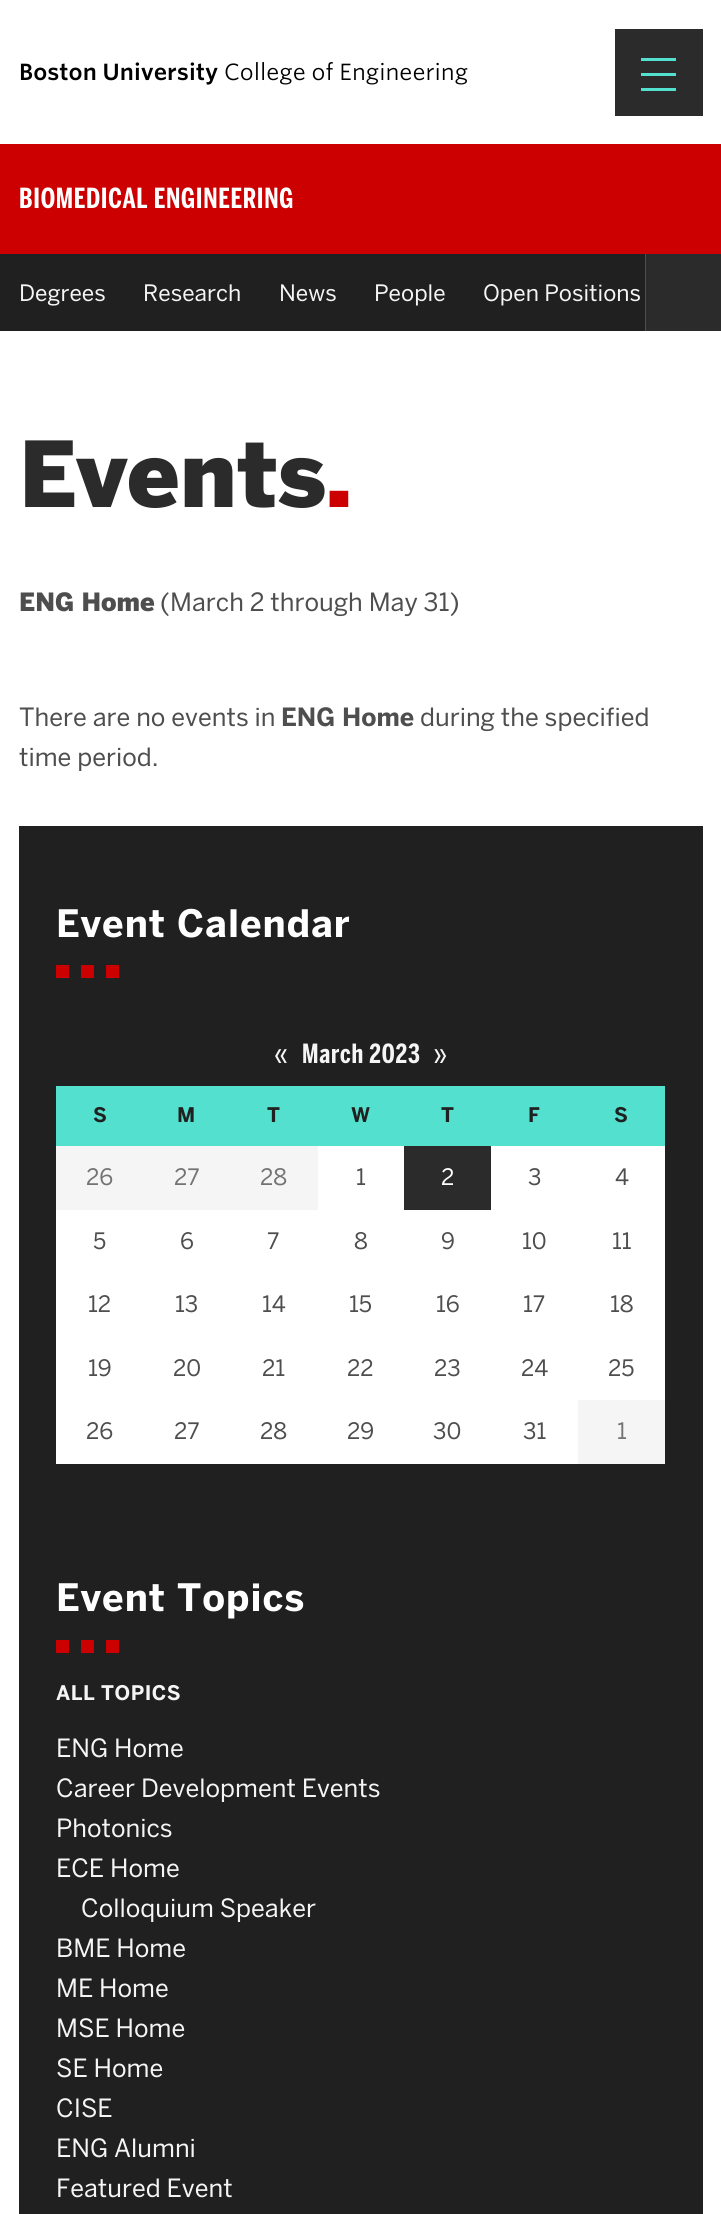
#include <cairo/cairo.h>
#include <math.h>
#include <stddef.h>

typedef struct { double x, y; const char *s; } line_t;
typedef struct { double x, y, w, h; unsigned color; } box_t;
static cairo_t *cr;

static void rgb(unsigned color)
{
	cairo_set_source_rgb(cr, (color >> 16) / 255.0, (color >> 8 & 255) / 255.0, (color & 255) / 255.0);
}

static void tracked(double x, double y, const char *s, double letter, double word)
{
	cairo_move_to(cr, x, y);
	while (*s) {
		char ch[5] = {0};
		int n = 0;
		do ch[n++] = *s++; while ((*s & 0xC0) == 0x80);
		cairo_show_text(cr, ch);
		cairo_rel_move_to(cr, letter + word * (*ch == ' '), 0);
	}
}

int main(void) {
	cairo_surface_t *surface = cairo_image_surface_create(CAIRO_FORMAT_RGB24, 721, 2214);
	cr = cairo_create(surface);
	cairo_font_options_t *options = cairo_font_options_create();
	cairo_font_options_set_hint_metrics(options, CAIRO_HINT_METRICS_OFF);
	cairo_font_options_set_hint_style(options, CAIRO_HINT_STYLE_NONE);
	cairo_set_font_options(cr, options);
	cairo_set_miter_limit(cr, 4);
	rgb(0xffffff);
	cairo_paint(cr);
	{
		static const box_t items[] = {
			{615, 29, 88, 87, 0x2b2b2b},
			{641, 58, 35, 3, 0x53e0cf},
			{641, 73, 35, 3, 0x53e0cf},
			{641, 88, 35, 3, 0x53e0cf},
			{0, 254, 645, 77, 0x202020},
			{0, 144, 721, 110, 0xcc0000},
			{646, 254, 75, 77, 0x2b2b2b},
			{645, 254, 1, 77, 0x4e4e4e},
			{19, 826, 684, 1388, 0x202020},
			{56, 965, 13, 13, 0xcc0000},
			{81, 965, 13, 13, 0xcc0000},
			{106, 965, 13, 13, 0xcc0000},
			{56, 1086, 609, 60, 0x53e0cf},
			{56, 1146, 609, 318, 0xffffff},
			{56, 1146, 262, 64, 0xf5f5f5},
			{404, 1146, 87, 64, 0x2b2b2b},
			{578, 1400, 87, 64, 0xf5f5f5},
			{56, 1640, 13, 13, 0xcc0000},
			{81, 1640, 13, 13, 0xcc0000},
			{106, 1640, 13, 13, 0xcc0000},
		};
		for (size_t i = 0; i < sizeof items / sizeof *items; i++) {
			rgb(items[i].color);
			cairo_rectangle(cr, items[i].x, items[i].y, items[i].w, items[i].h);
			cairo_fill(cr);
		}
	}
	cairo_select_font_face(cr, "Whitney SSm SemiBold", CAIRO_FONT_SLANT_NORMAL, CAIRO_FONT_WEIGHT_NORMAL);
	cairo_set_font_size(cr, 22.5);
	rgb(0x000000);
	cairo_move_to(cr, 19, 80);
	cairo_show_text(cr, "Boston University");
	cairo_select_font_face(cr, "Whitney SSm", CAIRO_FONT_SLANT_NORMAL, CAIRO_FONT_WEIGHT_NORMAL);
	cairo_move_to(cr, 224, 80);
	cairo_show_text(cr, "College of Engineering");
	cairo_select_font_face(cr, "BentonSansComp", CAIRO_FONT_SLANT_NORMAL, CAIRO_FONT_WEIGHT_BOLD);
	cairo_set_font_size(cr, 27.5);
	rgb(0xffffff);
	tracked(19, 208, "BIOMEDICAL ENGINEERING", 0.7, 0);
	cairo_select_font_face(cr, "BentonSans", CAIRO_FONT_SLANT_NORMAL, CAIRO_FONT_WEIGHT_NORMAL);
	cairo_set_font_size(cr, 22.5);
	rgb(0xf5f5f5);
	{
		static const line_t items[] = {
			{19, 301, "Degrees"},
			{143, 301, "Research"},
			{279, 301, "News"},
			{374, 301, "People"},
			{483, 301, "Open Positions"},
		};
		for (size_t i = 0; i < sizeof items / sizeof *items; i++) {
			cairo_move_to(cr, items[i].x, items[i].y);
			cairo_show_text(cr, items[i].s);
		}
	}
	cairo_select_font_face(cr, "BentonSans Black", CAIRO_FONT_SLANT_NORMAL, CAIRO_FONT_WEIGHT_NORMAL);
	cairo_set_font_size(cr, 90);
	rgb(0x2b2b2b);
	cairo_move_to(cr, 19, 507);
	cairo_show_text(cr, "Events");
	rgb(0xcc0000);
	cairo_move_to(cr, 326, 507);
	cairo_show_text(cr, ".");
	cairo_set_font_size(cr, 25);
	rgb(0x4e4e4e);
	cairo_move_to(cr, 19, 611);
	cairo_show_text(cr, "ENG Home");
	cairo_select_font_face(cr, "BentonSans", CAIRO_FONT_SLANT_NORMAL, CAIRO_FONT_WEIGHT_NORMAL);
	cairo_move_to(cr, 160, 611);
	cairo_show_text(cr, "(March 2 through May 31)");
	cairo_move_to(cr, 19, 726);
	cairo_show_text(cr, "There are no events in");
	cairo_select_font_face(cr, "BentonSans", CAIRO_FONT_SLANT_NORMAL, CAIRO_FONT_WEIGHT_BOLD);
	cairo_move_to(cr, 281, 726);
	cairo_show_text(cr, "ENG Home");
	cairo_select_font_face(cr, "BentonSans", CAIRO_FONT_SLANT_NORMAL, CAIRO_FONT_WEIGHT_NORMAL);
	cairo_move_to(cr, 420, 726);
	cairo_show_text(cr, "during the specified");
	cairo_move_to(cr, 19, 766);
	cairo_show_text(cr, "time period.");
	cairo_select_font_face(cr, "BentonSans", CAIRO_FONT_SLANT_NORMAL, CAIRO_FONT_WEIGHT_BOLD);
	cairo_set_font_size(cr, 37.5);
	rgb(0xffffff);
	tracked(56, 937, "Event Calendar", 1, 0);
	cairo_select_font_face(cr, "BentonSans", CAIRO_FONT_SLANT_NORMAL, CAIRO_FONT_WEIGHT_NORMAL);
	cairo_set_font_size(cr, 26.25);
	rgb(0xf5f5f5);
	tracked(274, 1063, "«", 0.75, 0);
	cairo_select_font_face(cr, "BentonSansComp", CAIRO_FONT_SLANT_NORMAL, CAIRO_FONT_WEIGHT_BOLD);
	tracked(302, 1063, "March 2023", 0.75, 0);
	cairo_select_font_face(cr, "BentonSans", CAIRO_FONT_SLANT_NORMAL, CAIRO_FONT_WEIGHT_NORMAL);
	tracked(433, 1063, "»", 0.75, 0);
	cairo_select_font_face(cr, "BentonSans", CAIRO_FONT_SLANT_NORMAL, CAIRO_FONT_WEIGHT_BOLD);
	cairo_set_font_size(cr, 20);
	rgb(0x202020);
	{
		static const line_t items[] = {
			{93, 1122, "S"},
			{177, 1122, "M"},
			{267, 1122, "T"},
			{351, 1122, "W"},
			{441, 1122, "T"},
			{528, 1122, "F"},
			{614, 1122, "S"},
		};
		for (size_t i = 0; i < sizeof items / sizeof *items; i++) {
			tracked(items[i].x, items[i].y, items[i].s, 0.5, 0);
		}
	}
	cairo_select_font_face(cr, "BentonSans", CAIRO_FONT_SLANT_NORMAL, CAIRO_FONT_WEIGHT_NORMAL);
	cairo_set_font_size(cr, 22.5);
	rgb(0x737373);
	{
		static const line_t items[] = {
			{86, 1185, "26"},
			{174, 1185, "27"},
			{260, 1185, "28"},
		};
		for (size_t i = 0; i < sizeof items / sizeof *items; i++) {
			cairo_move_to(cr, items[i].x, items[i].y);
			cairo_show_text(cr, items[i].s);
		}
	}
	rgb(0x4e4e4e);
	cairo_move_to(cr, 356, 1185);
	cairo_show_text(cr, "1");
	rgb(0xffffff);
	cairo_move_to(cr, 441, 1185);
	cairo_show_text(cr, "2");
	rgb(0x4e4e4e);
	{
		static const line_t items[] = {
			{528, 1185, "3"},
			{615, 1185, "4"},
			{93, 1249, "5"},
			{180, 1249, "6"},
			{267, 1249, "7"},
			{354, 1249, "8"},
			{441, 1249, "9"},
			{522, 1249, "10"},
			{612, 1249, "11"},
			{88, 1312, "12"},
			{175, 1312, "13"},
			{262, 1312, "14"},
			{349, 1312, "15"},
			{436, 1312, "16"},
			{523, 1312, "17"},
			{610, 1312, "18"},
			{88, 1376, "19"},
			{173, 1376, "20"},
			{262, 1376, "21"},
			{347, 1376, "22"},
			{434, 1376, "23"},
			{521, 1376, "24"},
			{608, 1376, "25"},
			{86, 1439, "26"},
			{174, 1439, "27"},
			{260, 1439, "28"},
			{347, 1439, "29"},
			{433, 1439, "30"},
			{523, 1439, "31"},
		};
		for (size_t i = 0; i < sizeof items / sizeof *items; i++) {
			cairo_move_to(cr, items[i].x, items[i].y);
			cairo_show_text(cr, items[i].s);
		}
	}
	rgb(0x737373);
	cairo_move_to(cr, 617, 1439);
	cairo_show_text(cr, "1");
	cairo_select_font_face(cr, "BentonSans", CAIRO_FONT_SLANT_NORMAL, CAIRO_FONT_WEIGHT_BOLD);
	cairo_set_font_size(cr, 37.5);
	rgb(0xffffff);
	tracked(56, 1611, "Event Topics", 1, 0);
	cairo_set_font_size(cr, 20);
	rgb(0xf5f5f5);
	tracked(56, 1700, "ALL TOPICS", 0.5, 0);
	cairo_select_font_face(cr, "BentonSans", CAIRO_FONT_SLANT_NORMAL, CAIRO_FONT_WEIGHT_NORMAL);
	cairo_set_font_size(cr, 25);
	{
		static const line_t items[] = {
			{56, 1757, "ENG Home"},
			{56, 1797, "Career Development Events"},
			{56, 1837, "Photonics"},
			{56, 1877, "ECE Home"},
			{81, 1917, "Colloquium Speaker"},
			{56, 1957, "BME Home"},
			{56, 1997, "ME Home"},
			{56, 2037, "MSE Home"},
			{56, 2077, "SE Home"},
			{56, 2117, "CISE"},
			{56, 2157, "ENG Alumni"},
			{56, 2197, "Featured Event"},
		};
		for (size_t i = 0; i < sizeof items / sizeof *items; i++) {
			cairo_move_to(cr, items[i].x, items[i].y);
			cairo_show_text(cr, items[i].s);
		}
	}
	cairo_surface_write_to_png(surface, "page.png");
	cairo_font_options_destroy(options);
	cairo_destroy(cr);
	cairo_surface_destroy(surface);
	return 0;
}
